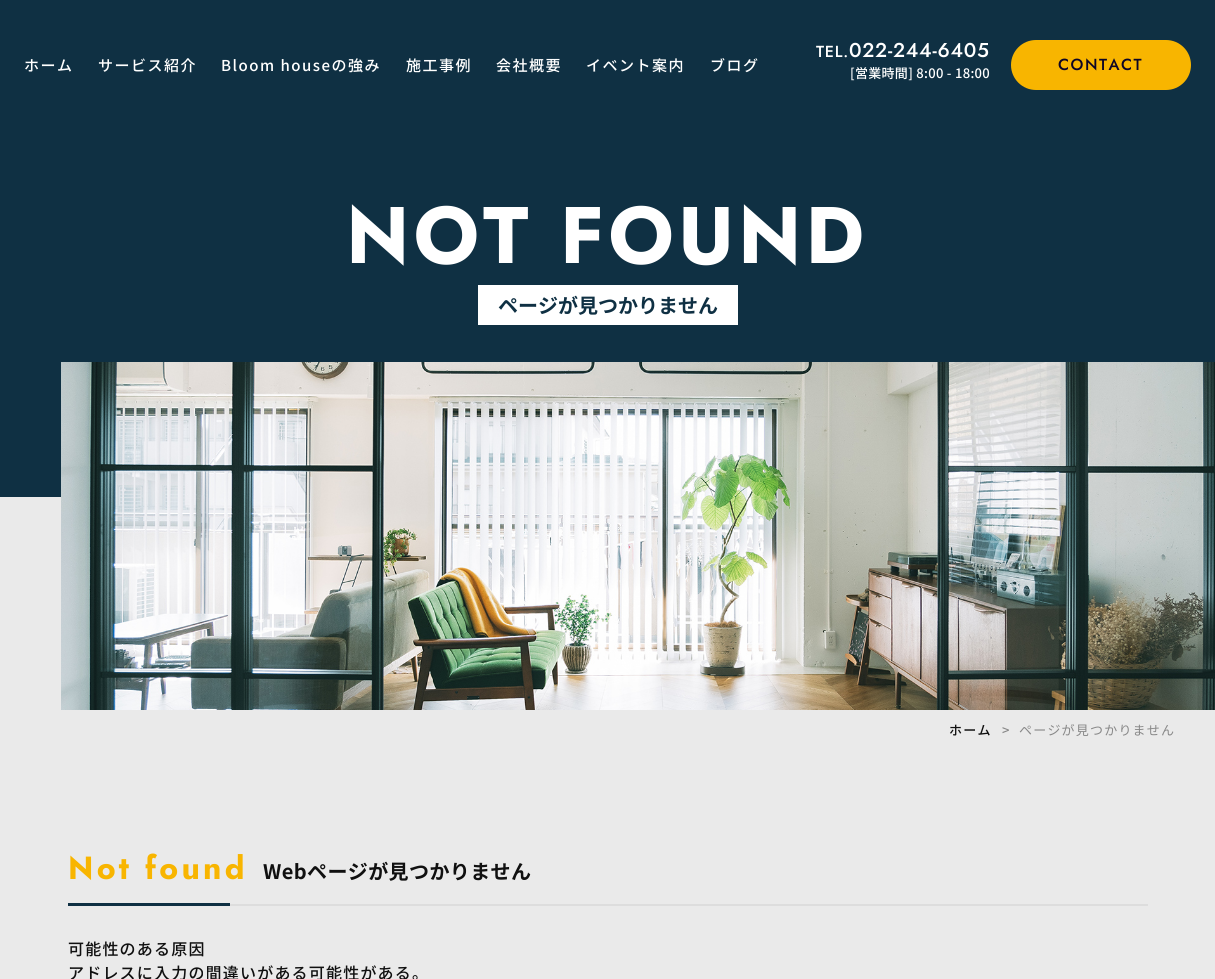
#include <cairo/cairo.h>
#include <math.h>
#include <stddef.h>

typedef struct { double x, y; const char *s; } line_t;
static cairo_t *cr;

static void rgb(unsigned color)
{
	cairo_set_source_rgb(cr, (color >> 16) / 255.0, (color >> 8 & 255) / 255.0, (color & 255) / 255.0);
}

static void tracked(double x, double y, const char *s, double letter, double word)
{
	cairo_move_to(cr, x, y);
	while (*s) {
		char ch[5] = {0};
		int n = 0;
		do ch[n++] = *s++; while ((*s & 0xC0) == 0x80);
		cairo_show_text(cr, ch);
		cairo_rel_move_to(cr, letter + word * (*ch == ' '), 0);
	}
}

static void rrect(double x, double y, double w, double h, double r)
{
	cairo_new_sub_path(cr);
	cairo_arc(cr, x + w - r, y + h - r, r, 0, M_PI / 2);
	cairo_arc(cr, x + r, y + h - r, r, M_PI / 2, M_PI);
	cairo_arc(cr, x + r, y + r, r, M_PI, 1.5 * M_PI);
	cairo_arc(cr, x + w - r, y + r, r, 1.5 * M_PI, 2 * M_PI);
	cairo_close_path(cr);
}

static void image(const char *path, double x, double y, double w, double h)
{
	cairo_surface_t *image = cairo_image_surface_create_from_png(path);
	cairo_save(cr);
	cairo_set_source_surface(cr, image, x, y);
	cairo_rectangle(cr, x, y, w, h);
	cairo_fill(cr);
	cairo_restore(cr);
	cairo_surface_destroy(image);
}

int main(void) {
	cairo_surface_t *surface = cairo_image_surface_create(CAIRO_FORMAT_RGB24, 1215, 979);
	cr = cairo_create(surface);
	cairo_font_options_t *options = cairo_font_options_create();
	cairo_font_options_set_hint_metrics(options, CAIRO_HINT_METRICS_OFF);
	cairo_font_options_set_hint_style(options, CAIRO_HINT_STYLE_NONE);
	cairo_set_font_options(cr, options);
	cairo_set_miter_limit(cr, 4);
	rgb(0xeaeaea);
	cairo_paint(cr);
	rgb(0x0f3043);
	cairo_rectangle(cr, 0, 0, 1215, 497);
	cairo_fill(cr);
	rgb(0xf8b500);
	rrect(1011, 40, 180, 50, 25);
	cairo_fill(cr);
	rgb(0xffffff);
	cairo_rectangle(cr, 478, 285, 260, 40);
	cairo_fill(cr);
	image("img/1.png", 61, 362, 1154, 348);
	rgb(0xdddddd);
	cairo_rectangle(cr, 230, 904, 918, 2);
	cairo_fill(cr);
	rgb(0x0f3043);
	cairo_rectangle(cr, 68, 903, 162, 3);
	cairo_fill(cr);
	cairo_select_font_face(cr, "Noto Sans JP Medium", CAIRO_FONT_SLANT_NORMAL, CAIRO_FONT_WEIGHT_NORMAL);
	cairo_set_font_size(cr, 15);
	rgb(0xffffff);
	{
		static const line_t items[] = {
			{24, 71, "ホーム"},
			{98, 71, "サービス紹介"},
			{221, 71, "Bloom houseの強み"},
			{406, 71, "施工事例"},
			{496, 71, "会社概要"},
			{586, 71, "イベント案内"},
			{710, 71, "ブログ"},
		};
		for (size_t i = 0; i < sizeof items / sizeof *items; i++) {
			tracked(items[i].x, items[i].y, items[i].s, 1.5, 0);
		}
	}
	cairo_select_font_face(cr, "Jost Medium", CAIRO_FONT_SLANT_NORMAL, CAIRO_FONT_WEIGHT_NORMAL);
	cairo_set_font_size(cr, 16);
	tracked(816, 57, "TEL.", 0.75, 0);
	cairo_set_font_size(cr, 20);
	tracked(849, 57, "022-244-6405", 0.75, 0);
	cairo_select_font_face(cr, "Noto Sans JP Medium", CAIRO_FONT_SLANT_NORMAL, CAIRO_FONT_WEIGHT_NORMAL);
	cairo_set_font_size(cr, 13);
	tracked(850, 78, "[営業時間] 8:00 - 18:00", 0.3, 0);
	cairo_select_font_face(cr, "Jost Medium", CAIRO_FONT_SLANT_NORMAL, CAIRO_FONT_WEIGHT_NORMAL);
	cairo_set_font_size(cr, 16);
	rgb(0x0d0526);
	tracked(1058, 70, "CONTACT", 1.5, 0);
	cairo_select_font_face(cr, "Jost", CAIRO_FONT_SLANT_NORMAL, CAIRO_FONT_WEIGHT_BOLD);
	cairo_set_font_size(cr, 80);
	rgb(0xffffff);
	tracked(346, 263, "NOT FOUND", 4, 0);
	cairo_select_font_face(cr, "Noto Sans JP", CAIRO_FONT_SLANT_NORMAL, CAIRO_FONT_WEIGHT_BOLD);
	cairo_set_font_size(cr, 20);
	rgb(0x0f3043);
	cairo_move_to(cr, 498, 313);
	cairo_show_text(cr, "ページが見つかりません");
	cairo_select_font_face(cr, "Noto Sans JP Medium", CAIRO_FONT_SLANT_NORMAL, CAIRO_FONT_WEIGHT_NORMAL);
	cairo_set_font_size(cr, 13);
	rgb(0x101010);
	tracked(949, 735, "ホーム", 1.2, 0);
	rgb(0x888888);
	tracked(1002, 735, ">", 1.2, 0);
	cairo_select_font_face(cr, "Noto Sans JP", CAIRO_FONT_SLANT_NORMAL, CAIRO_FONT_WEIGHT_NORMAL);
	tracked(1019, 735, "ページが見つかりません", 1.2, 0);
	cairo_select_font_face(cr, "Jost", CAIRO_FONT_SLANT_NORMAL, CAIRO_FONT_WEIGHT_BOLD);
	cairo_set_font_size(cr, 32);
	rgb(0xf8b500);
	tracked(68, 879, "Not found", 3.25, 0);
	cairo_select_font_face(cr, "Noto Sans JP", CAIRO_FONT_SLANT_NORMAL, CAIRO_FONT_WEIGHT_BOLD);
	cairo_set_font_size(cr, 20);
	rgb(0x101010);
	tracked(263, 879, "Webページが見つかりません", 0.4, 0);
	cairo_select_font_face(cr, "Noto Sans JP Medium", CAIRO_FONT_SLANT_NORMAL, CAIRO_FONT_WEIGHT_NORMAL);
	cairo_set_font_size(cr, 16);
	tracked(68, 955, "可能性のある原因", 1.2, 0);
	tracked(68, 979, "アドレスに入力の間違いがある可能性がある。", 1.2, 0);
	cairo_surface_write_to_png(surface, "page.png");
	cairo_font_options_destroy(options);
	cairo_destroy(cr);
	cairo_surface_destroy(surface);
	return 0;
}
